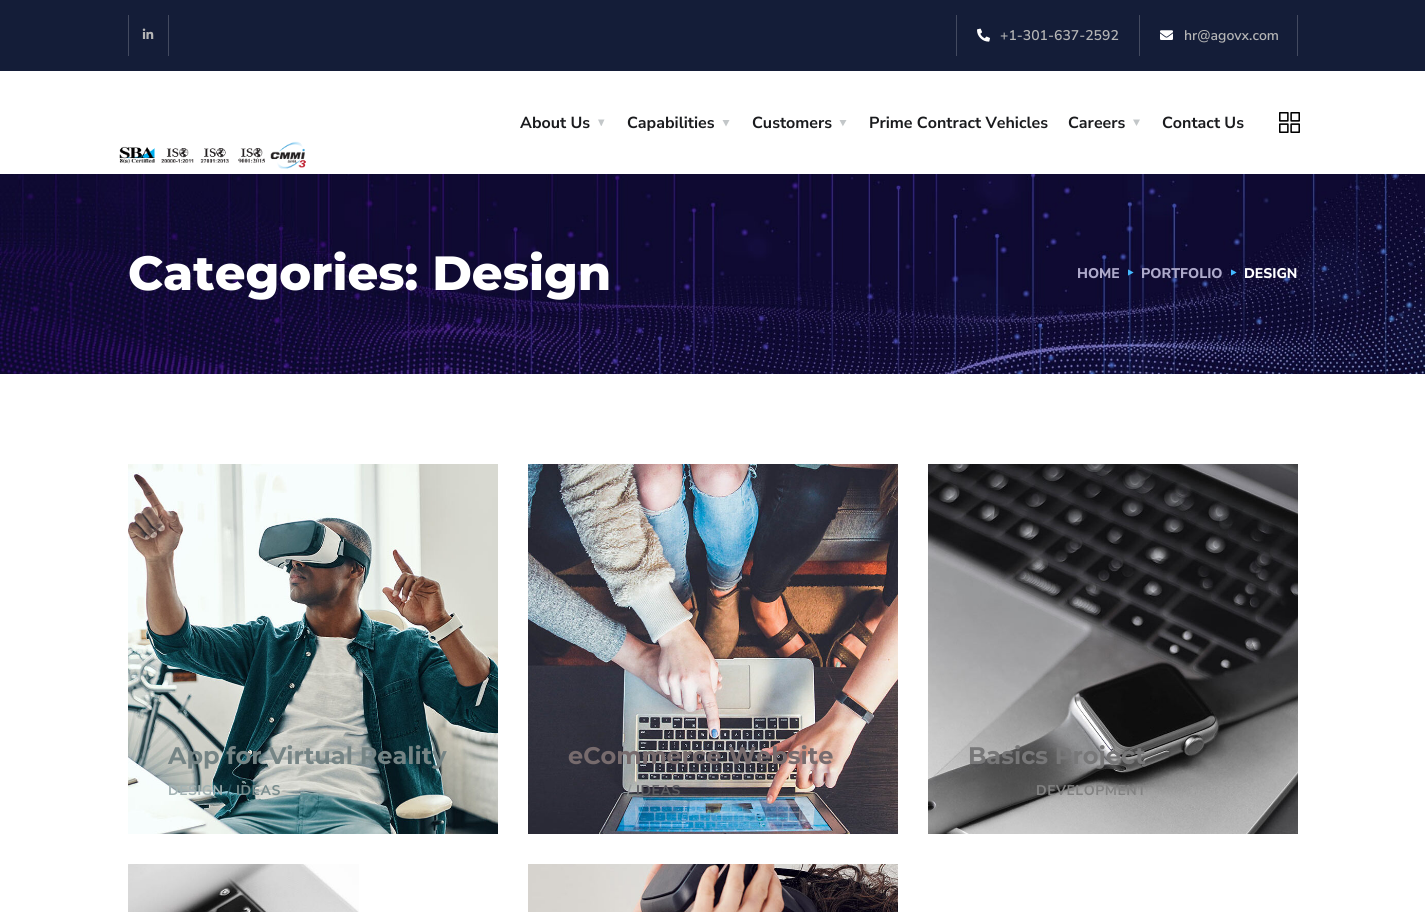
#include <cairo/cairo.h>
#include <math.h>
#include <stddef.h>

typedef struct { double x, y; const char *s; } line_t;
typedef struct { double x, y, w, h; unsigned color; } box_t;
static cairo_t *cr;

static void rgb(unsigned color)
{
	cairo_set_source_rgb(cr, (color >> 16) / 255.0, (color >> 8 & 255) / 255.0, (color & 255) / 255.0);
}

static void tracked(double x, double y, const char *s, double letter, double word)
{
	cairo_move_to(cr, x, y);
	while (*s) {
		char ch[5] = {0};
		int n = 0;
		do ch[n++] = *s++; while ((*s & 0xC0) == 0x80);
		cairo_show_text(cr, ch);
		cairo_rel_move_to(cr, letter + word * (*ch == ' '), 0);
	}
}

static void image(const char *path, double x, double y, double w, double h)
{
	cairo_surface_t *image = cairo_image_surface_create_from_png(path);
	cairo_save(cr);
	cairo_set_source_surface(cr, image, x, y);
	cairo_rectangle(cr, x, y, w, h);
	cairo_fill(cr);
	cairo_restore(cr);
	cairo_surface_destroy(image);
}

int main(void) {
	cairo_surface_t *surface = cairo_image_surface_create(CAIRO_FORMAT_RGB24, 1425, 912);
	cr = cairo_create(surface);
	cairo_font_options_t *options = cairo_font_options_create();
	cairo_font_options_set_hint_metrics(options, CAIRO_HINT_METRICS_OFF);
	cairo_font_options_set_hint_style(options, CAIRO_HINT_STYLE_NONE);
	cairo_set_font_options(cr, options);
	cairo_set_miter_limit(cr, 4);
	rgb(0xffffff);
	cairo_paint(cr);
	{
		static const box_t items[] = {
			{0, 0, 1425, 71, 0x141d38},
			{128, 15, 1, 41, 0x434a60},
			{168, 15, 1, 41, 0x434a60},
		};
		for (size_t i = 0; i < sizeof items / sizeof *items; i++) {
			rgb(items[i].color);
			cairo_rectangle(cr, items[i].x, items[i].y, items[i].w, items[i].h);
			cairo_fill(cr);
		}
	}
	image("img/1.png", 142, 28, 12, 11);
	cairo_rectangle(cr, 1297, 15, 1, 41);
	cairo_fill(cr);
	cairo_rectangle(cr, 956, 15, 1, 41);
	cairo_fill(cr);
	image("img/2.png", 977, 28, 13, 14);
	cairo_rectangle(cr, 1139, 15, 1, 41);
	cairo_fill(cr);
	image("img/3.png", 1160, 30, 13, 10);
	rgb(0xc3c7c9);
	cairo_new_path(cr);
	cairo_move_to(cr, 601.5, 126);
	cairo_line_to(cr, 601, 126);
	cairo_line_to(cr, 598, 119.5);
	cairo_line_to(cr, 604.5, 119.5);
	cairo_close_path(cr);
	cairo_fill(cr);
	cairo_new_path(cr);
	cairo_move_to(cr, 726, 126.5);
	cairo_line_to(cr, 722.5, 120);
	cairo_line_to(cr, 729.5, 120);
	cairo_close_path(cr);
	cairo_fill(cr);
	cairo_new_path(cr);
	cairo_move_to(cr, 843, 126);
	cairo_line_to(cr, 843, 126.5);
	cairo_line_to(cr, 839.5, 120);
	cairo_line_to(cr, 846.5, 120);
	cairo_close_path(cr);
	cairo_fill(cr);
	cairo_new_path(cr);
	cairo_move_to(cr, 1136.5, 126);
	cairo_line_to(cr, 1133, 119.5);
	cairo_line_to(cr, 1140, 119.5);
	cairo_close_path(cr);
	cairo_fill(cr);
	image("img/4.png", 1279, 112, 21, 21);
	image("img/5.png", 119, 141, 187, 28);
	image("img/6.png", 0, 174, 1425, 200);
	image("img/7.png", 1128, 269, 6, 7);
	image("img/8.png", 1231, 269, 6, 7);
	image("img/9.png", 128, 464, 370, 370);
	image("img/10.png", 528, 464, 370, 370);
	image("img/11.png", 928, 464, 370, 370);
	image("img/12.png", 128, 864, 231, 48);
	image("img/13.png", 528, 864, 370, 48);
	cairo_select_font_face(cr, "Nunito Sans SemiBold", CAIRO_FONT_SLANT_NORMAL, CAIRO_FONT_WEIGHT_NORMAL);
	cairo_set_font_size(cr, 14);
	rgb(0xb5b5b5);
	cairo_move_to(cr, 1000, 40);
	cairo_show_text(cr, "+1-301-637-2592");
	cairo_move_to(cr, 1184, 40);
	cairo_show_text(cr, "hr@agovx.com");
	cairo_select_font_face(cr, "Nunito Sans", CAIRO_FONT_SLANT_NORMAL, CAIRO_FONT_WEIGHT_BOLD);
	cairo_set_font_size(cr, 16);
	rgb(0x1a1b1e);
	{
		static const line_t items[] = {
			{520, 128, "About Us"},
			{627, 128, "Capabilities"},
			{752, 128, "Customers"},
			{869, 128, "Prime Contract Vehicles"},
			{1068, 128, "Careers"},
			{1162, 128, "Contact Us"},
		};
		for (size_t i = 0; i < sizeof items / sizeof *items; i++) {
			cairo_move_to(cr, items[i].x, items[i].y);
			cairo_show_text(cr, items[i].s);
		}
	}
	cairo_select_font_face(cr, "Montserrat ExtraBold", CAIRO_FONT_SLANT_NORMAL, CAIRO_FONT_WEIGHT_NORMAL);
	cairo_set_font_size(cr, 48);
	rgb(0xffffff);
	cairo_move_to(cr, 128, 290);
	cairo_show_text(cr, "Categories: Design");
	cairo_select_font_face(cr, "Nunito Sans ExtraBold", CAIRO_FONT_SLANT_NORMAL, CAIRO_FONT_WEIGHT_NORMAL);
	cairo_set_font_size(cr, 14);
	rgb(0xaeaacb);
	cairo_move_to(cr, 1077, 278);
	cairo_show_text(cr, "HOME");
	cairo_move_to(cr, 1141, 278);
	cairo_show_text(cr, "PORTFOLIO");
	rgb(0xffffff);
	cairo_move_to(cr, 1244, 278);
	cairo_show_text(cr, "DESIGN");
	cairo_select_font_face(cr, "Montserrat", CAIRO_FONT_SLANT_NORMAL, CAIRO_FONT_WEIGHT_BOLD);
	cairo_set_font_size(cr, 24);
	rgb(0x758485);
	cairo_move_to(cr, 168, 764);
	cairo_show_text(cr, "App for Virtual Reality");
	cairo_select_font_face(cr, "Nunito Sans", CAIRO_FONT_SLANT_NORMAL, CAIRO_FONT_WEIGHT_BOLD);
	cairo_set_font_size(cr, 14);
	rgb(0xa2b2b3);
	tracked(168, 795, "DESIGN", 0.5, 0);
	rgb(0x255560);
	tracked(227, 795, "/", 0.5, 0);
	rgb(0x788c8d);
	tracked(236, 795, "IDEAS", 0.5, 0);
	cairo_select_font_face(cr, "Montserrat", CAIRO_FONT_SLANT_NORMAL, CAIRO_FONT_WEIGHT_BOLD);
	cairo_set_font_size(cr, 24);
	rgb(0x776b6d);
	cairo_move_to(cr, 568, 764);
	cairo_show_text(cr, "eCommerce Website");
	cairo_select_font_face(cr, "Nunito Sans", CAIRO_FONT_SLANT_NORMAL, CAIRO_FONT_WEIGHT_BOLD);
	cairo_set_font_size(cr, 14);
	rgb(0x95999a);
	tracked(627, 795, "/", 0.5, 0);
	rgb(0x5b5b61);
	tracked(636, 795, "IDEAS", 0.5, 0);
	cairo_select_font_face(cr, "Montserrat", CAIRO_FONT_SLANT_NORMAL, CAIRO_FONT_WEIGHT_BOLD);
	cairo_set_font_size(cr, 24);
	rgb(0x777778);
	cairo_move_to(cr, 968, 764);
	cairo_show_text(cr, "Basics Project");
	cairo_select_font_face(cr, "Nunito Sans", CAIRO_FONT_SLANT_NORMAL, CAIRO_FONT_WEIGHT_BOLD);
	cairo_set_font_size(cr, 14);
	rgb(0x828282);
	tracked(1036, 795, "DEVELOPMENT", 0.5, 0);
	cairo_surface_write_to_png(surface, "page.png");
	cairo_font_options_destroy(options);
	cairo_destroy(cr);
	cairo_surface_destroy(surface);
	return 0;
}
